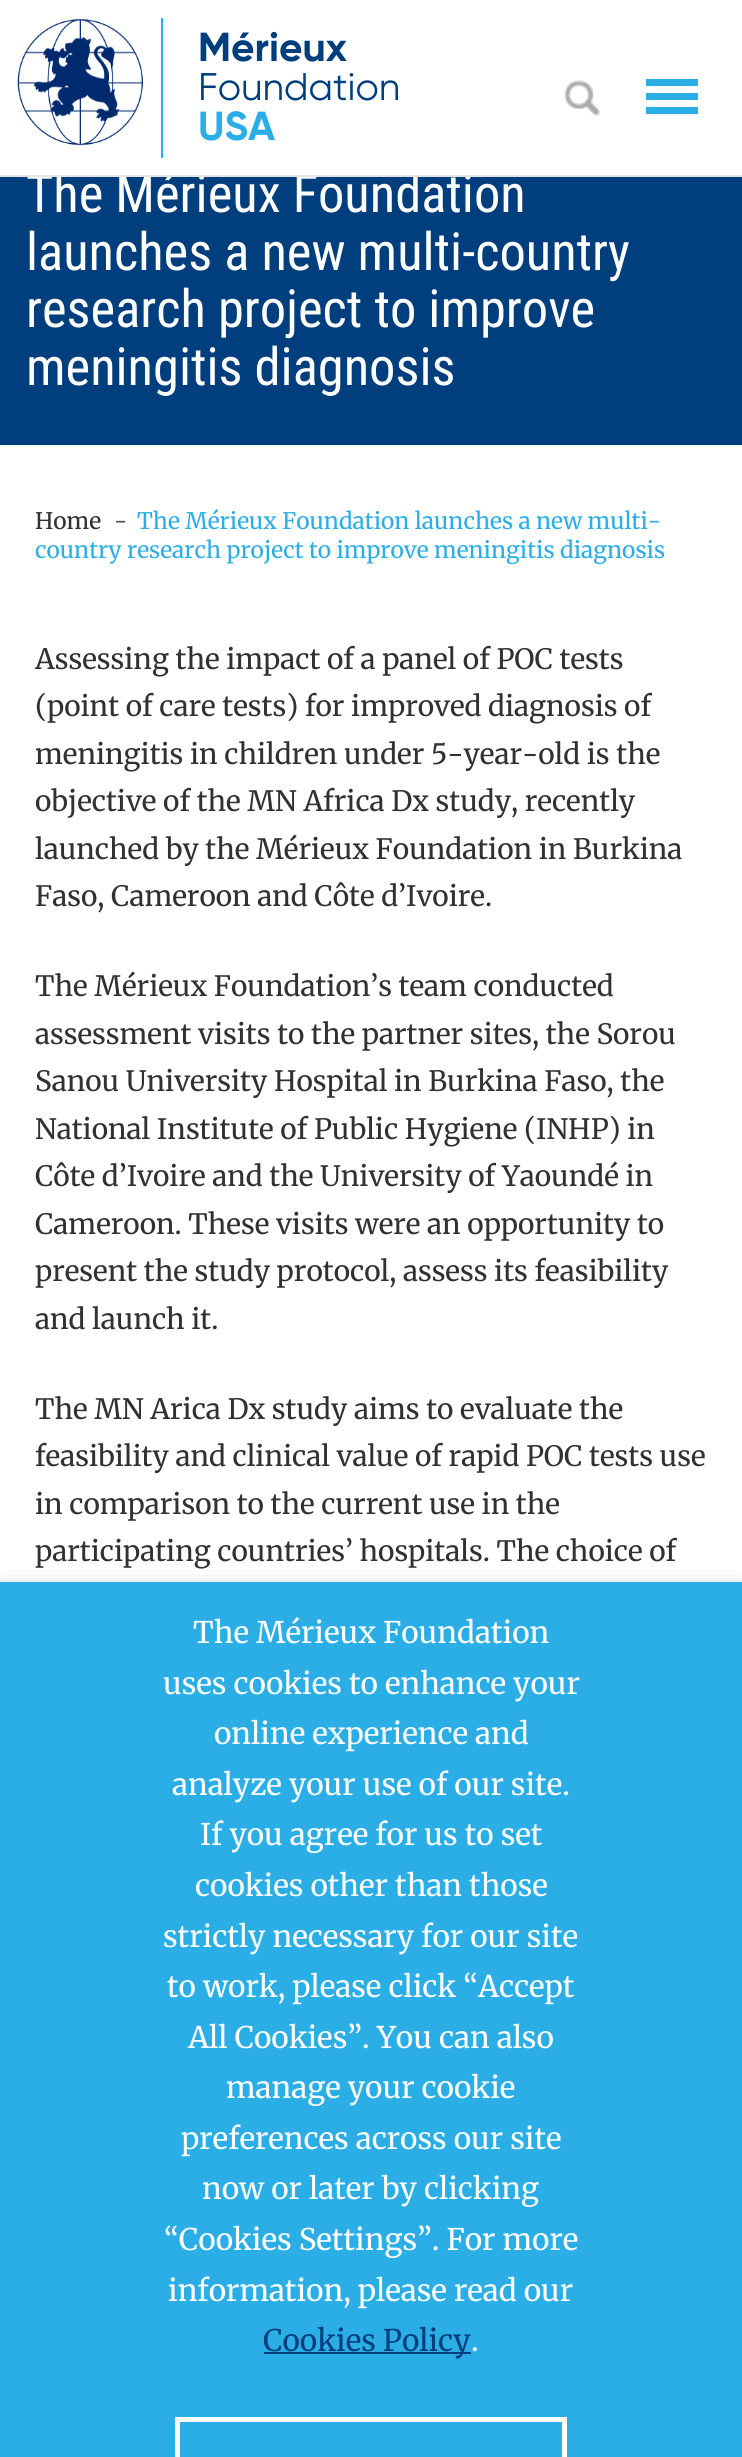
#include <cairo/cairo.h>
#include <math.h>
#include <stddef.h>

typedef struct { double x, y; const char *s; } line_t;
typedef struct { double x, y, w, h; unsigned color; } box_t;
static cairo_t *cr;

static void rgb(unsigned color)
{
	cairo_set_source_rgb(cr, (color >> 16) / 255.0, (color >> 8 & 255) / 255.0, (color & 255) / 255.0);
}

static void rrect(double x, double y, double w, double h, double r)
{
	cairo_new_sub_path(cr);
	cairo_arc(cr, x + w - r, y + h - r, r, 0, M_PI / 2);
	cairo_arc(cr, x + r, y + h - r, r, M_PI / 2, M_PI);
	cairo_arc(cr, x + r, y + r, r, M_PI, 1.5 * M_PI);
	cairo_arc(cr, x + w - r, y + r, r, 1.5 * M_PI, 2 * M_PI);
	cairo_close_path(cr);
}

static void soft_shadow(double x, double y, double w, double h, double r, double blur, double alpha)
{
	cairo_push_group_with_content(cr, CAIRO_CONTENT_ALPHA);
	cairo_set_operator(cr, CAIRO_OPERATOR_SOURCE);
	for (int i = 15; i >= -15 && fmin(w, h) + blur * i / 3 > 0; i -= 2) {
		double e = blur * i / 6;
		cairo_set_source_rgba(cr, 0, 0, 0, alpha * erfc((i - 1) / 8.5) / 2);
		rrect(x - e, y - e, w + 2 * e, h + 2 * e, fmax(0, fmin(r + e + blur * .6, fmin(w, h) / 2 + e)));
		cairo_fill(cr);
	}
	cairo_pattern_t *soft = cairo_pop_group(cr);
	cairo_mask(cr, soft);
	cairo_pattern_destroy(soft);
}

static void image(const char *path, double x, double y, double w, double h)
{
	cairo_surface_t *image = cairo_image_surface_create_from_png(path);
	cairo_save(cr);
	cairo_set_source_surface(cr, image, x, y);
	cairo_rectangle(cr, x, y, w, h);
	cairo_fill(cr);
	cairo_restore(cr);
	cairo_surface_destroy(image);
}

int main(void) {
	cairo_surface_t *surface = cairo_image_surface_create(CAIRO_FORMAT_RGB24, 742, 2457);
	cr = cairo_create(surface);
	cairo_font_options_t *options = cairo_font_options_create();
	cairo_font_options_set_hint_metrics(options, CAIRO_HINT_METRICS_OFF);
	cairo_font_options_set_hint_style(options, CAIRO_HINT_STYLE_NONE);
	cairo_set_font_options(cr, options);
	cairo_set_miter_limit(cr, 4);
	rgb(0xffffff);
	cairo_paint(cr);
	image("img/1.png", 17, 19, 126, 127);
	rgb(0x2baee6);
	cairo_rectangle(cr, 161, 18, 2, 140);
	cairo_fill(cr);
	image("img/2.png", 564, 80, 36, 36);
	{
		static const box_t items[] = {
			{646, 79, 52, 7, 0x2baee6},
			{646, 93, 52, 7, 0x2baee6},
			{646, 107, 52, 7, 0x2baee6},
			{0, 177, 742, 268, 0x003e7e},
		};
		for (size_t i = 0; i < sizeof items / sizeof *items; i++) {
			rgb(items[i].color);
			cairo_rectangle(cr, items[i].x, items[i].y, items[i].w, items[i].h);
			cairo_fill(cr);
		}
	}
	rgb(0x000000);
	soft_shadow(0, 1591, 742, 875, 0, 9, 0.5);
	rgb(0x2baee6);
	cairo_rectangle(cr, 0, 1582, 742, 875);
	cairo_fill(cr);
	rgb(0x003e7e);
	cairo_rectangle(cr, 264, 2352, 207, 2);
	cairo_fill(cr);
	cairo_rectangle(cr, 177.5, 2419.5, 387, 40);
	rgb(0xffffff);
	cairo_set_line_width(cr, 5);
	cairo_stroke(cr);
	cairo_select_font_face(cr, "Gilroy", CAIRO_FONT_SLANT_NORMAL, CAIRO_FONT_WEIGHT_BOLD);
	cairo_set_font_size(cr, 40.5);
	rgb(0x003e7e);
	cairo_move_to(cr, 198, 61);
	cairo_show_text(cr, "Mérieux");
	cairo_select_font_face(cr, "Gilroy", CAIRO_FONT_SLANT_NORMAL, CAIRO_FONT_WEIGHT_NORMAL);
	cairo_set_font_size(cr, 38.5);
	cairo_move_to(cr, 198, 100);
	cairo_show_text(cr, "Foundation");
	cairo_select_font_face(cr, "Gilroy", CAIRO_FONT_SLANT_NORMAL, CAIRO_FONT_WEIGHT_BOLD);
	cairo_set_font_size(cr, 40.5);
	rgb(0x2baee6);
	cairo_move_to(cr, 198, 140);
	cairo_show_text(cr, "USA");
	cairo_select_font_face(cr, "Roboto Condensed", CAIRO_FONT_SLANT_NORMAL, CAIRO_FONT_WEIGHT_NORMAL);
	cairo_set_font_size(cr, 52.5);
	rgb(0xffffff);
	cairo_move_to(cr, 26, 212);
	cairo_show_text(cr, "The Mérieux Foundation");
	rgb(0xe5e5e5);
	cairo_rectangle(cr, 0, 175, 742, 2);
	cairo_fill(cr);
	rgb(0xffffff);
	{
		static const line_t items[] = {
			{26, 270, "launches a new multi-country"},
			{26, 327, "research project to improve"},
			{26, 385, "meningitis diagnosis"},
		};
		for (size_t i = 0; i < sizeof items / sizeof *items; i++) {
			cairo_move_to(cr, items[i].x, items[i].y);
			cairo_show_text(cr, items[i].s);
		}
	}
	cairo_select_font_face(cr, "Merriweather", CAIRO_FONT_SLANT_NORMAL, CAIRO_FONT_WEIGHT_NORMAL);
	cairo_set_font_size(cr, 22.75);
	rgb(0x313131);
	cairo_move_to(cr, 35, 529);
	cairo_show_text(cr, "Home");
	rgb(0x4d4d4d);
	cairo_move_to(cr, 114, 529);
	cairo_show_text(cr, "-");
	rgb(0x2baee6);
	cairo_move_to(cr, 137, 529);
	cairo_show_text(cr, "The Mérieux Foundation launches a new multi-");
	cairo_move_to(cr, 35, 558);
	cairo_show_text(cr, "country research project to improve meningitis diagnosis");
	cairo_set_font_size(cr, 28);
	rgb(0x313131);
	{
		static const line_t items[] = {
			{35, 669, "Assessing the impact of a panel of POC tests"},
			{35, 716, "(point of care tests) for improved diagnosis of"},
			{35, 764, "meningitis in children under 5-year-old is the"},
			{35, 811, "objective of the MN Africa Dx study, recently"},
			{35, 859, "launched by the Mérieux Foundation in Burkina"},
			{35, 906, "Faso, Cameroon and Côte d’Ivoire."},
			{35, 996, "The Mérieux Foundation’s team conducted"},
			{35, 1044, "assessment visits to the partner sites, the Sorou"},
			{35, 1091, "Sanou University Hospital in Burkina Faso, the"},
			{35, 1139, "National Institute of Public Hygiene (INHP) in"},
			{35, 1186, "Côte d’Ivoire and the University of Yaoundé in"},
			{35, 1234, "Cameroon. These visits were an opportunity to"},
			{35, 1281, "present the study protocol, assess its feasibility"},
			{35, 1329, "and launch it."},
			{35, 1419, "The MN Arica Dx study aims to evaluate the"},
			{35, 1466, "feasibility and clinical value of rapid POC tests use"},
			{35, 1514, "in comparison to the current use in the"},
			{35, 1561, "participating countries’ hospitals. The choice of"},
		};
		for (size_t i = 0; i < sizeof items / sizeof *items; i++) {
			cairo_move_to(cr, items[i].x, items[i].y);
			cairo_show_text(cr, items[i].s);
		}
	}
	cairo_set_font_size(cr, 29.75);
	rgb(0xffffff);
	{
		static const line_t items[] = {
			{193, 1643, "The Mérieux Foundation"},
			{163, 1694, "uses cookies to enhance your"},
			{214, 1744, "online experience and"},
			{172, 1795, "analyze your use of our site."},
			{200, 1845, "If you agree for us to set"},
			{195, 1896, "cookies other than those"},
			{163, 1947, "strictly necessary for our site"},
			{167, 1997, "to work, please click “Accept"},
			{188, 2048, "All Cookies”. You can also"},
			{226, 2098, "manage your cookie"},
			{181, 2149, "preferences across our site"},
			{202, 2199, "now or later by clicking"},
			{164, 2250, "“Cookies Settings”. For more"},
			{168, 2301, "information, please read our"},
		};
		for (size_t i = 0; i < sizeof items / sizeof *items; i++) {
			cairo_move_to(cr, items[i].x, items[i].y);
			cairo_show_text(cr, items[i].s);
		}
	}
	rgb(0x003e7e);
	cairo_move_to(cr, 263, 2351);
	cairo_show_text(cr, "Cookies Policy");
	rgb(0xffffff);
	cairo_move_to(cr, 471, 2351);
	cairo_show_text(cr, ".");
	cairo_surface_write_to_png(surface, "page.png");
	cairo_font_options_destroy(options);
	cairo_destroy(cr);
	cairo_surface_destroy(surface);
	return 0;
}
